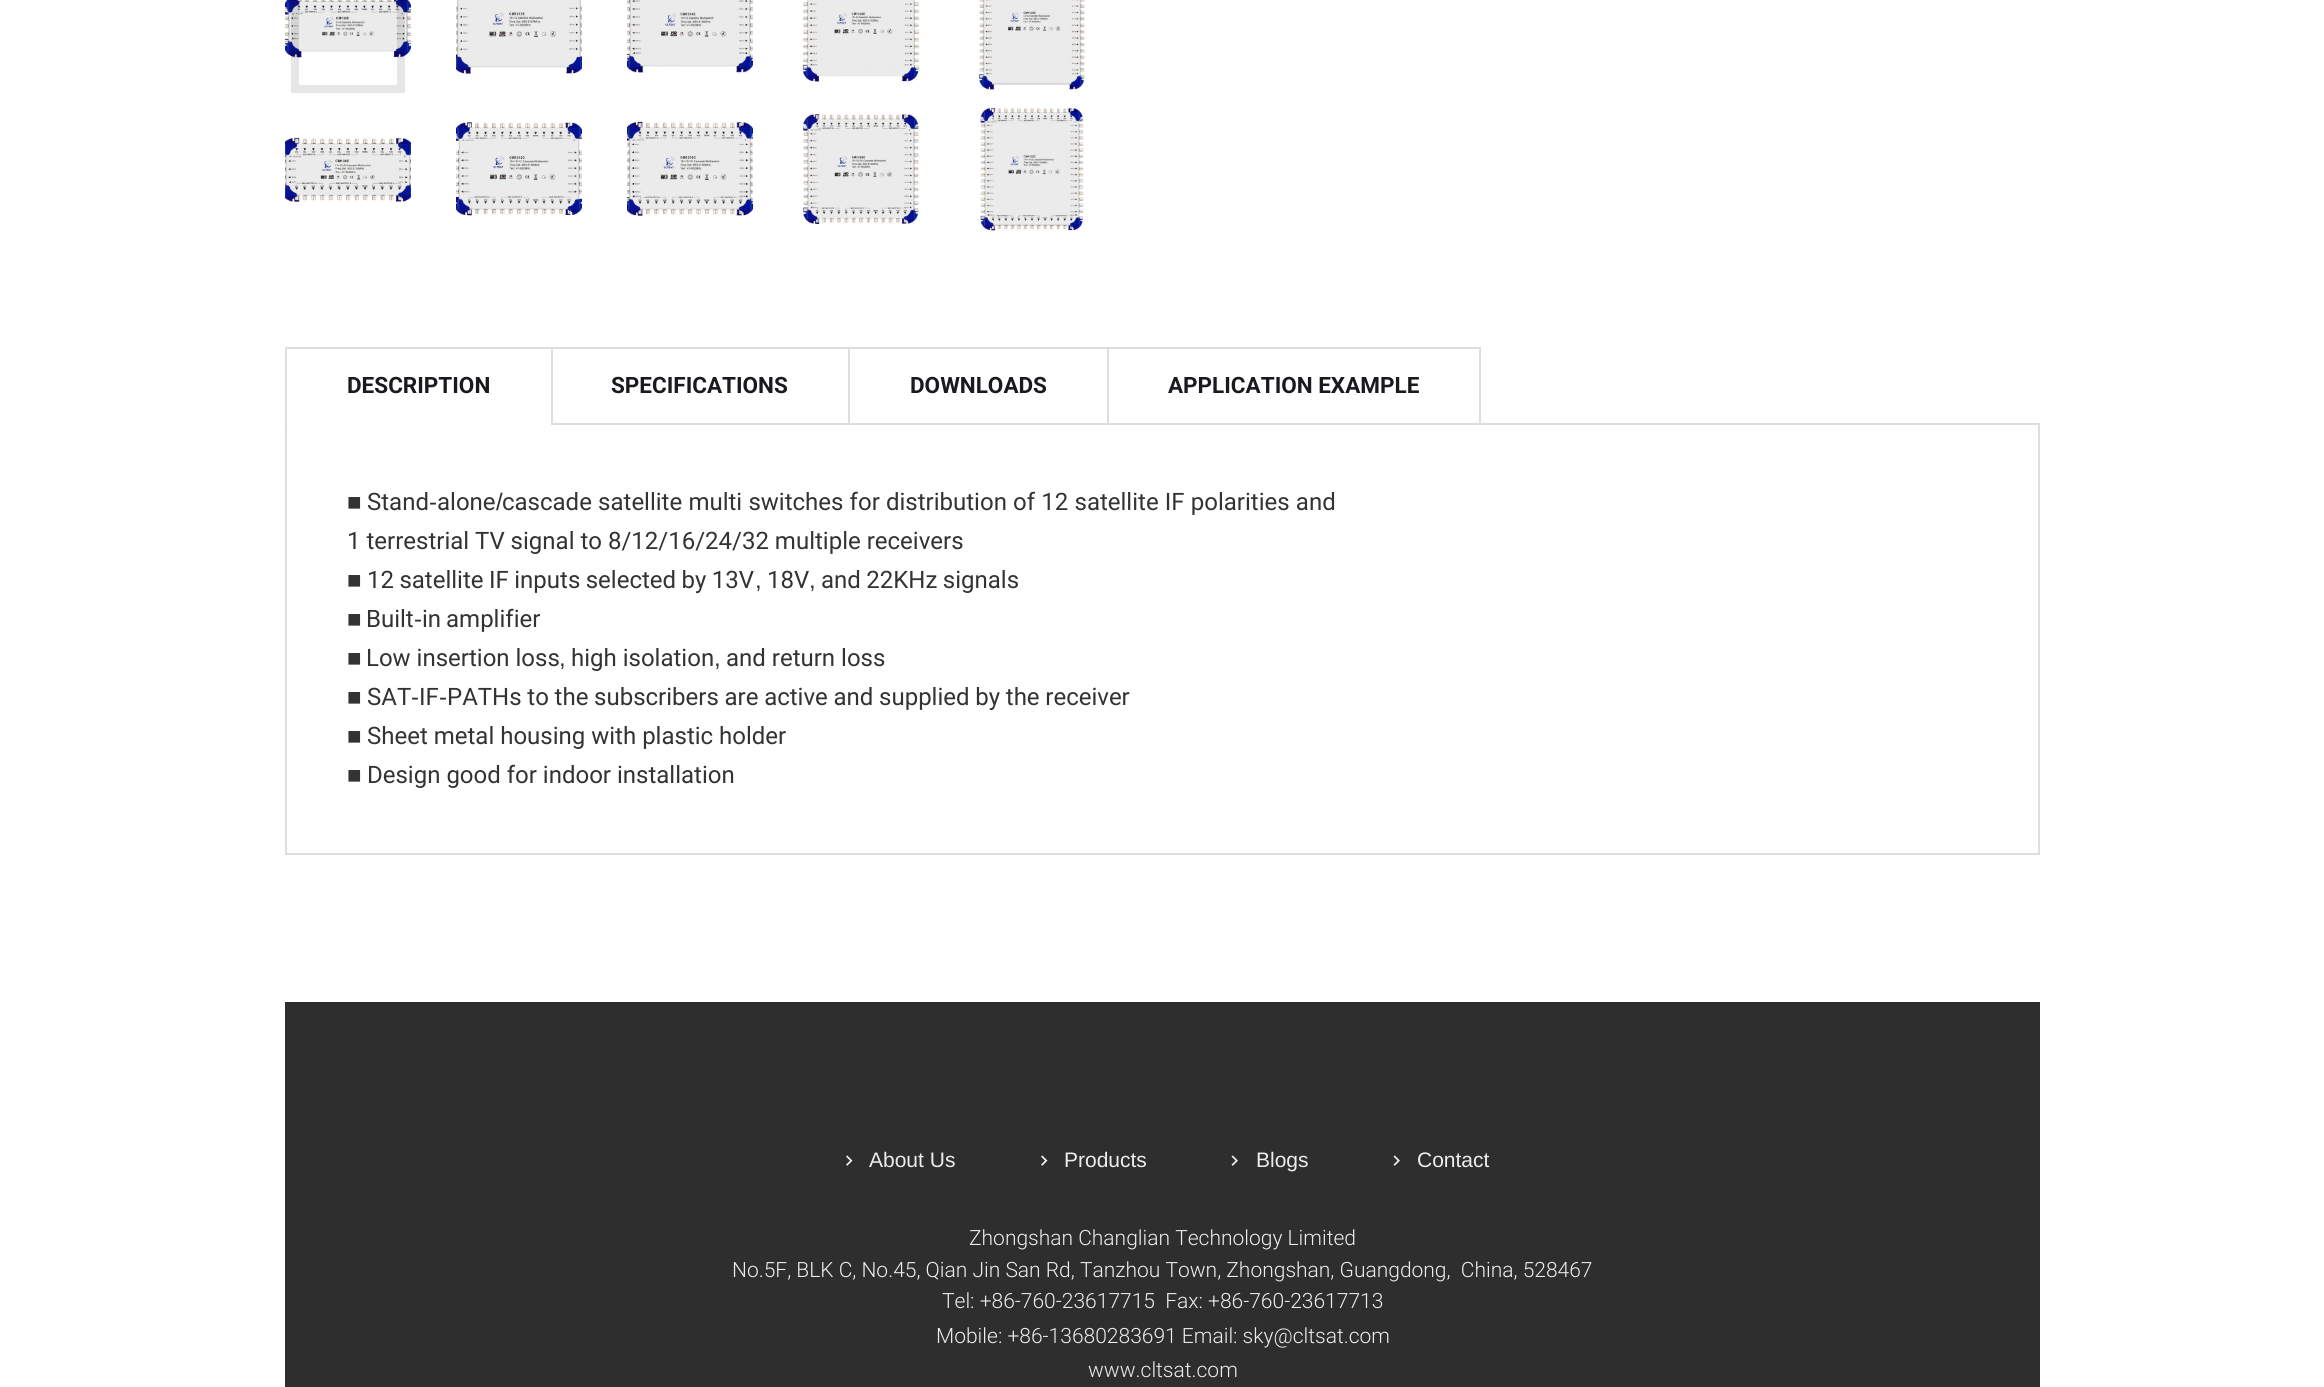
#include <cairo/cairo.h>
#include <math.h>
#include <stddef.h>

typedef struct { double x, y; const char *s; } line_t;
typedef struct { double x, y, w, h; unsigned color; } box_t;
static cairo_t *cr;

static void rgb(unsigned color)
{
	cairo_set_source_rgb(cr, (color >> 16) / 255.0, (color >> 8 & 255) / 255.0, (color & 255) / 255.0);
}

static void tracked(double x, double y, const char *s, double letter, double word)
{
	cairo_move_to(cr, x, y);
	while (*s) {
		char ch[5] = {0};
		int n = 0;
		do ch[n++] = *s++; while ((*s & 0xC0) == 0x80);
		cairo_show_text(cr, ch);
		cairo_rel_move_to(cr, letter + word * (*ch == ' '), 0);
	}
}

static void image(const char *path, double x, double y, double w, double h)
{
	cairo_surface_t *image = cairo_image_surface_create_from_png(path);
	cairo_save(cr);
	cairo_set_source_surface(cr, image, x, y);
	cairo_rectangle(cr, x, y, w, h);
	cairo_fill(cr);
	cairo_restore(cr);
	cairo_surface_destroy(image);
}

int main(void) {
	cairo_surface_t *surface = cairo_image_surface_create(CAIRO_FORMAT_RGB24, 2324, 1387);
	cr = cairo_create(surface);
	cairo_font_options_t *options = cairo_font_options_create();
	cairo_font_options_set_hint_metrics(options, CAIRO_HINT_METRICS_OFF);
	cairo_font_options_set_hint_style(options, CAIRO_HINT_STYLE_NONE);
	cairo_set_font_options(cr, options);
	cairo_set_miter_limit(cr, 4);
	rgb(0xffffff);
	cairo_paint(cr);
	image("img/1.png", 285, 0, 126, 59);
	cairo_rectangle(cr, 295, -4, 106, 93);
	cairo_set_source_rgba(cr, 0, 0, 0, 0.1);
	cairo_set_line_width(cr, 8);
	cairo_stroke(cr);
	image("img/2.png", 456, 0, 126, 76);
	image("img/3.png", 627, 0, 126, 73);
	image("img/4.png", 801, 0, 120, 84);
	image("img/5.png", 977, 0, 109, 90);
	image("img/6.png", 285, 137, 126, 65);
	image("img/7.png", 456, 121, 126, 95);
	image("img/8.png", 627, 121, 126, 95);
	image("img/9.png", 801, 113, 120, 112);
	image("img/10.png", 980, 107, 104, 125);
	{
		static const box_t items[] = {
			{285, 347, 564, 2, 0xdedede},
			{551, 347, 2, 76, 0xdedede},
			{285, 347, 2, 76, 0xdedede},
		};
		for (size_t i = 0; i < sizeof items / sizeof *items; i++) {
			rgb(items[i].color);
			cairo_rectangle(cr, items[i].x, items[i].y, items[i].w, items[i].h);
			cairo_fill(cr);
		}
	}
	cairo_rectangle(cr, 286, 424, 1753, 430);
	cairo_set_line_width(cr, 2);
	cairo_stroke(cr);
	rgb(0xffffff);
	cairo_new_path(cr);
	cairo_move_to(cr, 287, 423);
	cairo_line_to(cr, 551, 423);
	cairo_line_to(cr, 551, 425);
	cairo_line_to(cr, 288.5, 425);
	cairo_curve_to(cr, 287.5, 425, 287, 424.5, 287, 423.5);
	cairo_close_path(cr);
	cairo_fill(cr);
	{
		static const box_t items[] = {
			{848, 347, 2, 76, 0xdedede},
			{849, 347, 632, 2, 0xdedede},
			{1107, 347, 2, 76, 0xdedede},
			{1479, 347, 2, 76, 0xdedede},
			{285, 1002, 1755, 385, 0x2e2e2e},
		};
		for (size_t i = 0; i < sizeof items / sizeof *items; i++) {
			rgb(items[i].color);
			cairo_rectangle(cr, items[i].x, items[i].y, items[i].w, items[i].h);
			cairo_fill(cr);
		}
	}
	image("img/11.png", 846, 1155, 7, 11);
	image("img/11.png", 1041, 1155, 7, 11);
	image("img/12.png", 1231, 1155, 7, 11);
	image("img/12.png", 1393, 1155, 7, 11);
	cairo_select_font_face(cr, "Roboto", CAIRO_FONT_SLANT_NORMAL, CAIRO_FONT_WEIGHT_BOLD);
	cairo_set_font_size(cr, 22.5);
	rgb(0x1a191d);
	{
		static const line_t items[] = {
			{347, 393, "DESCRIPTION"},
			{611, 393, "SPECIFICATIONS"},
			{910, 393, "DOWNLOADS"},
			{1168, 393, "APPLICATION EXAMPLE"},
		};
		for (size_t i = 0; i < sizeof items / sizeof *items; i++) {
			cairo_move_to(cr, items[i].x, items[i].y);
			cairo_show_text(cr, items[i].s);
		}
	}
	cairo_select_font_face(cr, "Liberation Sans", CAIRO_FONT_SLANT_NORMAL, CAIRO_FONT_WEIGHT_NORMAL);
	cairo_set_font_size(cr, 24);
	rgb(0x333333);
	cairo_move_to(cr, 347, 510);
	cairo_show_text(cr, "■");
	cairo_select_font_face(cr, "Roboto", CAIRO_FONT_SLANT_NORMAL, CAIRO_FONT_WEIGHT_NORMAL);
	cairo_move_to(cr, 367, 510);
	cairo_show_text(cr, "Stand");
	cairo_select_font_face(cr, "Liberation Sans", CAIRO_FONT_SLANT_NORMAL, CAIRO_FONT_WEIGHT_NORMAL);
	cairo_move_to(cr, 429, 510);
	cairo_show_text(cr, "-");
	cairo_select_font_face(cr, "Roboto", CAIRO_FONT_SLANT_NORMAL, CAIRO_FONT_WEIGHT_NORMAL);
	cairo_move_to(cr, 437, 510);
	cairo_show_text(cr, "alone");
	cairo_select_font_face(cr, "Liberation Sans", CAIRO_FONT_SLANT_NORMAL, CAIRO_FONT_WEIGHT_NORMAL);
	cairo_move_to(cr, 496, 510);
	cairo_show_text(cr, "/");
	cairo_select_font_face(cr, "Roboto", CAIRO_FONT_SLANT_NORMAL, CAIRO_FONT_WEIGHT_NORMAL);
	tracked(502, 510, "cascade satellite multi switches for distribution of 12 satellite IF polarities and", 0, 0.25);
	cairo_move_to(cr, 347, 549);
	cairo_show_text(cr, "1 terrestrial TV signal to 8/12/16/24/32 multiple receivers");
	cairo_select_font_face(cr, "Liberation Sans", CAIRO_FONT_SLANT_NORMAL, CAIRO_FONT_WEIGHT_NORMAL);
	cairo_move_to(cr, 347, 588);
	cairo_show_text(cr, "■");
	cairo_select_font_face(cr, "Roboto", CAIRO_FONT_SLANT_NORMAL, CAIRO_FONT_WEIGHT_NORMAL);
	tracked(367, 588, "12 satellite IF inputs selected by 13V", 0, -0.5);
	cairo_move_to(cr, 767, 588);
	cairo_show_text(cr, "18V");
	tracked(821, 588, "and 22KHz signals", 0, -0.5);
	cairo_select_font_face(cr, "Liberation Sans", CAIRO_FONT_SLANT_NORMAL, CAIRO_FONT_WEIGHT_NORMAL);
	{
		static const line_t items[] = {
			{755, 588, ","},
			{809, 588, ","},
			{347, 627, "■"},
		};
		for (size_t i = 0; i < sizeof items / sizeof *items; i++) {
			cairo_move_to(cr, items[i].x, items[i].y);
			cairo_show_text(cr, items[i].s);
		}
	}
	cairo_select_font_face(cr, "Roboto", CAIRO_FONT_SLANT_NORMAL, CAIRO_FONT_WEIGHT_NORMAL);
	cairo_move_to(cr, 366, 627);
	cairo_show_text(cr, "Built");
	cairo_select_font_face(cr, "Liberation Sans", CAIRO_FONT_SLANT_NORMAL, CAIRO_FONT_WEIGHT_NORMAL);
	cairo_move_to(cr, 414, 627);
	cairo_show_text(cr, "-");
	cairo_select_font_face(cr, "Roboto", CAIRO_FONT_SLANT_NORMAL, CAIRO_FONT_WEIGHT_NORMAL);
	tracked(422, 627, "in amplifier", 0, -1);
	cairo_select_font_face(cr, "Liberation Sans", CAIRO_FONT_SLANT_NORMAL, CAIRO_FONT_WEIGHT_NORMAL);
	cairo_move_to(cr, 347, 666);
	cairo_show_text(cr, "■");
	cairo_select_font_face(cr, "Roboto", CAIRO_FONT_SLANT_NORMAL, CAIRO_FONT_WEIGHT_NORMAL);
	{
		static const line_t items[] = {
			{366, 666, "Low insertion loss"},
			{571, 666, "high isolation"},
			{726, 666, "and return loss"},
		};
		for (size_t i = 0; i < sizeof items / sizeof *items; i++) {
			cairo_move_to(cr, items[i].x, items[i].y);
			cairo_show_text(cr, items[i].s);
		}
	}
	cairo_select_font_face(cr, "Liberation Sans", CAIRO_FONT_SLANT_NORMAL, CAIRO_FONT_WEIGHT_NORMAL);
	{
		static const line_t items[] = {
			{559, 666, ","},
			{714, 666, ","},
			{347, 705, "■"},
		};
		for (size_t i = 0; i < sizeof items / sizeof *items; i++) {
			cairo_move_to(cr, items[i].x, items[i].y);
			cairo_show_text(cr, items[i].s);
		}
	}
	cairo_select_font_face(cr, "Roboto", CAIRO_FONT_SLANT_NORMAL, CAIRO_FONT_WEIGHT_NORMAL);
	cairo_move_to(cr, 367, 705);
	cairo_show_text(cr, "SAT");
	cairo_select_font_face(cr, "Liberation Sans", CAIRO_FONT_SLANT_NORMAL, CAIRO_FONT_WEIGHT_NORMAL);
	cairo_move_to(cr, 411, 705);
	cairo_show_text(cr, "-");
	cairo_select_font_face(cr, "Roboto", CAIRO_FONT_SLANT_NORMAL, CAIRO_FONT_WEIGHT_NORMAL);
	cairo_move_to(cr, 419, 705);
	cairo_show_text(cr, "IF");
	cairo_select_font_face(cr, "Liberation Sans", CAIRO_FONT_SLANT_NORMAL, CAIRO_FONT_WEIGHT_NORMAL);
	cairo_move_to(cr, 439, 705);
	cairo_show_text(cr, "-");
	cairo_select_font_face(cr, "Roboto", CAIRO_FONT_SLANT_NORMAL, CAIRO_FONT_WEIGHT_NORMAL);
	tracked(447, 705, "PATHs to the subscribers are active and supplied by the receiver", 0, -0.25);
	cairo_select_font_face(cr, "Liberation Sans", CAIRO_FONT_SLANT_NORMAL, CAIRO_FONT_WEIGHT_NORMAL);
	cairo_move_to(cr, 347, 744);
	cairo_show_text(cr, "■");
	cairo_select_font_face(cr, "Roboto", CAIRO_FONT_SLANT_NORMAL, CAIRO_FONT_WEIGHT_NORMAL);
	cairo_move_to(cr, 367, 744);
	cairo_show_text(cr, "Sheet metal housing with plastic holder");
	cairo_select_font_face(cr, "Liberation Sans", CAIRO_FONT_SLANT_NORMAL, CAIRO_FONT_WEIGHT_NORMAL);
	cairo_move_to(cr, 347, 783);
	cairo_show_text(cr, "■");
	cairo_select_font_face(cr, "Roboto", CAIRO_FONT_SLANT_NORMAL, CAIRO_FONT_WEIGHT_NORMAL);
	cairo_move_to(cr, 367, 783);
	cairo_show_text(cr, "Design good for indoor installation");
	cairo_select_font_face(cr, "Liberation Sans", CAIRO_FONT_SLANT_NORMAL, CAIRO_FONT_WEIGHT_NORMAL);
	cairo_set_font_size(cr, 21);
	rgb(0xededed);
	{
		static const line_t items[] = {
			{869, 1167, "About Us"},
			{1064, 1167, "Products"},
			{1256, 1167, "Blogs"},
			{1417, 1167, "Contact"},
		};
		for (size_t i = 0; i < sizeof items / sizeof *items; i++) {
			cairo_move_to(cr, items[i].x, items[i].y);
			cairo_show_text(cr, items[i].s);
		}
	}
	cairo_select_font_face(cr, "Roboto Light", CAIRO_FONT_SLANT_NORMAL, CAIRO_FONT_WEIGHT_NORMAL);
	{
		static const line_t items[] = {
			{969, 1245, "Zhongshan Changlian Technology Limited"},
			{732, 1277, "No.5F, BLK C, No.45, Qian Jin San Rd, Tanzhou Town, Zhongshan, Guangdong,  China, 528467"},
			{942, 1308, "Tel: +86-760-23617715  Fax: +86-760-23617713"},
			{936, 1343, "Mobile: +86-13680283691 Email: sky@cltsat.com"},
			{1088, 1377, "www.cltsat.com"},
		};
		for (size_t i = 0; i < sizeof items / sizeof *items; i++) {
			cairo_move_to(cr, items[i].x, items[i].y);
			cairo_show_text(cr, items[i].s);
		}
	}
	cairo_surface_write_to_png(surface, "page.png");
	cairo_font_options_destroy(options);
	cairo_destroy(cr);
	cairo_surface_destroy(surface);
	return 0;
}
